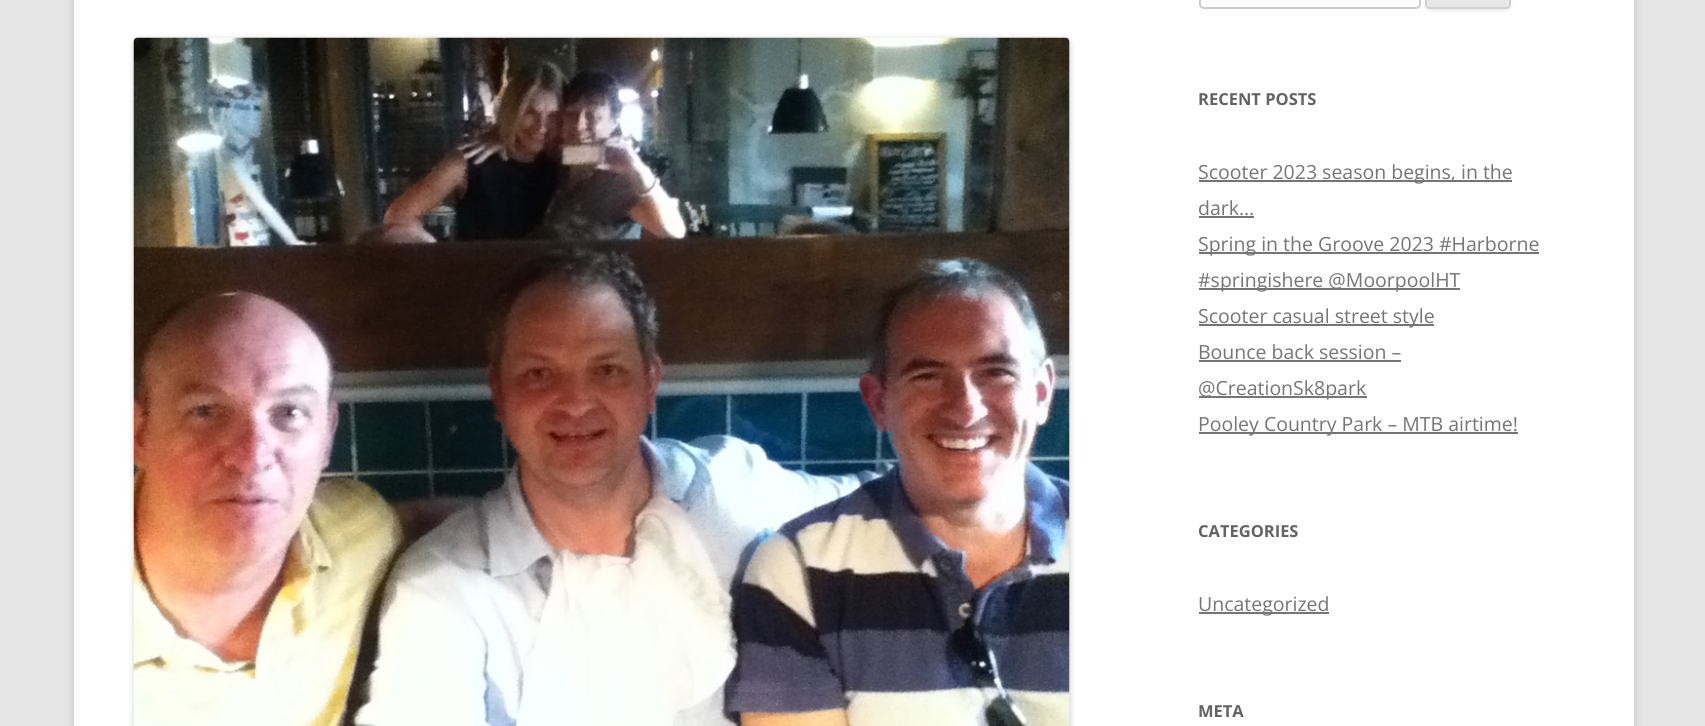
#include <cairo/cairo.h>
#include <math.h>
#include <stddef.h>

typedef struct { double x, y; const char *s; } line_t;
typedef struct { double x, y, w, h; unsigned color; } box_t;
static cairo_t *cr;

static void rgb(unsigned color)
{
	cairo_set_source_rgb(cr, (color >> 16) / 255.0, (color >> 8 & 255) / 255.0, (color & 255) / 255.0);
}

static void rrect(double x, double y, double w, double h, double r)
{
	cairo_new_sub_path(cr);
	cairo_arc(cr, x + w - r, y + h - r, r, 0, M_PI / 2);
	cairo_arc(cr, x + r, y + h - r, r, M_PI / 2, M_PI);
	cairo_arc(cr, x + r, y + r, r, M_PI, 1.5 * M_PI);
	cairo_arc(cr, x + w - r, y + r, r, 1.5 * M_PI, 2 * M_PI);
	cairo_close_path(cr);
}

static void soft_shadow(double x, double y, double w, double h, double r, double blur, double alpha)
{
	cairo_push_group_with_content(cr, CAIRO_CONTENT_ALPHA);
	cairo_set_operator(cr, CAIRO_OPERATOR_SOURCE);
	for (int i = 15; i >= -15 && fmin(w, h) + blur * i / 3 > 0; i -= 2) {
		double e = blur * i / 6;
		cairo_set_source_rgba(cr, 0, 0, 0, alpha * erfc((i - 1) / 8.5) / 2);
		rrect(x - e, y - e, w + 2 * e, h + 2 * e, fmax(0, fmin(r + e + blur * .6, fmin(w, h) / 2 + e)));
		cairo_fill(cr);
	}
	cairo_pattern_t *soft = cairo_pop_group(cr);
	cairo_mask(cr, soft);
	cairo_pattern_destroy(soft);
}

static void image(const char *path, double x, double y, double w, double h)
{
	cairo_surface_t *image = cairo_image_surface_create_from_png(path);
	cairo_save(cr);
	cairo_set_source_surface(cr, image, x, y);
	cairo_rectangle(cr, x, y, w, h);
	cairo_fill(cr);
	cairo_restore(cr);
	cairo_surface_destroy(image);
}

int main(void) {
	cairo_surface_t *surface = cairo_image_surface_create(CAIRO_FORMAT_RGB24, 1705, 726);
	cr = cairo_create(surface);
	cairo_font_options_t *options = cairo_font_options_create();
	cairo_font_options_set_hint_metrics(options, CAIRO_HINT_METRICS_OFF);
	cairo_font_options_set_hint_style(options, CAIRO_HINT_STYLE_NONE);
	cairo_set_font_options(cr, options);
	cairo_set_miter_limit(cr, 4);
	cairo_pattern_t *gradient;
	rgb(0xe6e6e6);
	cairo_paint(cr);
	rgb(0x646464);
	soft_shadow(74, -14, 1560, 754, 0, 4.5, 0.3);
	rgb(0xffffff);
	cairo_rectangle(cr, 74, 0, 1560, 726);
	cairo_fill(cr);
	rgb(0x000000);
	soft_shadow(134, 39, 936, 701, 5, 3, 0.2);
	image("img/1.png", 133, 37, 937, 689);
	rrect(1200, -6, 220, 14, 4);
	rgb(0xcccccc);
	cairo_stroke(cr);
	rgb(0x404040);
	soft_shadow(1425, -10, 86, 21, 5, 1.5, 0.1);
	cairo_save(cr);
	rrect(1425, -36, 86, 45, 5);
	cairo_clip(cr);
	gradient = cairo_pattern_create_linear(1468, -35, 1468, 7.5);
	cairo_pattern_add_color_stop_rgba(gradient, 0, 0.957, 0.957, 0.957, 1);
	cairo_pattern_add_color_stop_rgba(gradient, 1, 0.902, 0.902, 0.902, 1);
	cairo_set_source(cr, gradient);
	cairo_pattern_destroy(gradient);
	cairo_rectangle(cr, 1425, 0, 86, 8);
	cairo_fill(cr);
	cairo_restore(cr);
	rrect(1426, -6, 84, 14, 4);
	rgb(0xd2d2d2);
	cairo_stroke(cr);
	{
		static const box_t items[] = {
			{1199, 180, 313, 2, 0x757575},
			{1199, 216, 55, 2, 0x757575},
			{1199, 252, 340, 2, 0x757575},
			{1199, 288, 261, 2, 0x757575},
			{1199, 324, 235, 2, 0x757575},
			{1199, 360, 202, 2, 0x757575},
			{1199, 396, 168, 2, 0x757575},
			{1199, 432, 319, 2, 0x757575},
			{1199, 612, 130, 2, 0x757575},
		};
		for (size_t i = 0; i < sizeof items / sizeof *items; i++) {
			rgb(items[i].color);
			cairo_rectangle(cr, items[i].x, items[i].y, items[i].w, items[i].h);
			cairo_fill(cr);
		}
	}
	cairo_select_font_face(cr, "Open Sans", CAIRO_FONT_SLANT_NORMAL, CAIRO_FONT_WEIGHT_BOLD);
	cairo_set_font_size(cr, 16.5);
	rgb(0x636363);
	cairo_move_to(cr, 1198, 105);
	cairo_show_text(cr, "RECENT POSTS");
	cairo_select_font_face(cr, "Open Sans", CAIRO_FONT_SLANT_NORMAL, CAIRO_FONT_WEIGHT_NORMAL);
	cairo_set_font_size(cr, 19.5);
	rgb(0x757575);
	{
		static const line_t items[] = {
			{1198, 179, "Scooter 2023 season begins, in the"},
			{1198, 215, "dark…"},
			{1198, 251, "Spring in the Groove 2023 #Harborne"},
			{1198, 287, "#springishere @MoorpoolHT"},
			{1198, 323, "Scooter casual street style"},
			{1198, 359, "Bounce back session –"},
			{1198, 395, "@CreationSk8park"},
			{1198, 431, "Pooley Country Park – MTB airtime!"},
		};
		for (size_t i = 0; i < sizeof items / sizeof *items; i++) {
			cairo_move_to(cr, items[i].x, items[i].y);
			cairo_show_text(cr, items[i].s);
		}
	}
	cairo_select_font_face(cr, "Open Sans", CAIRO_FONT_SLANT_NORMAL, CAIRO_FONT_WEIGHT_BOLD);
	cairo_set_font_size(cr, 16.5);
	rgb(0x636363);
	cairo_move_to(cr, 1198, 537);
	cairo_show_text(cr, "CATEGORIES");
	cairo_select_font_face(cr, "Open Sans", CAIRO_FONT_SLANT_NORMAL, CAIRO_FONT_WEIGHT_NORMAL);
	cairo_set_font_size(cr, 19.5);
	rgb(0x757575);
	cairo_move_to(cr, 1198, 611);
	cairo_show_text(cr, "Uncategorized");
	cairo_select_font_face(cr, "Open Sans", CAIRO_FONT_SLANT_NORMAL, CAIRO_FONT_WEIGHT_BOLD);
	cairo_set_font_size(cr, 16.5);
	rgb(0x636363);
	cairo_move_to(cr, 1198, 717);
	cairo_show_text(cr, "META");
	cairo_surface_write_to_png(surface, "page.png");
	cairo_font_options_destroy(options);
	cairo_destroy(cr);
	cairo_surface_destroy(surface);
	return 0;
}
